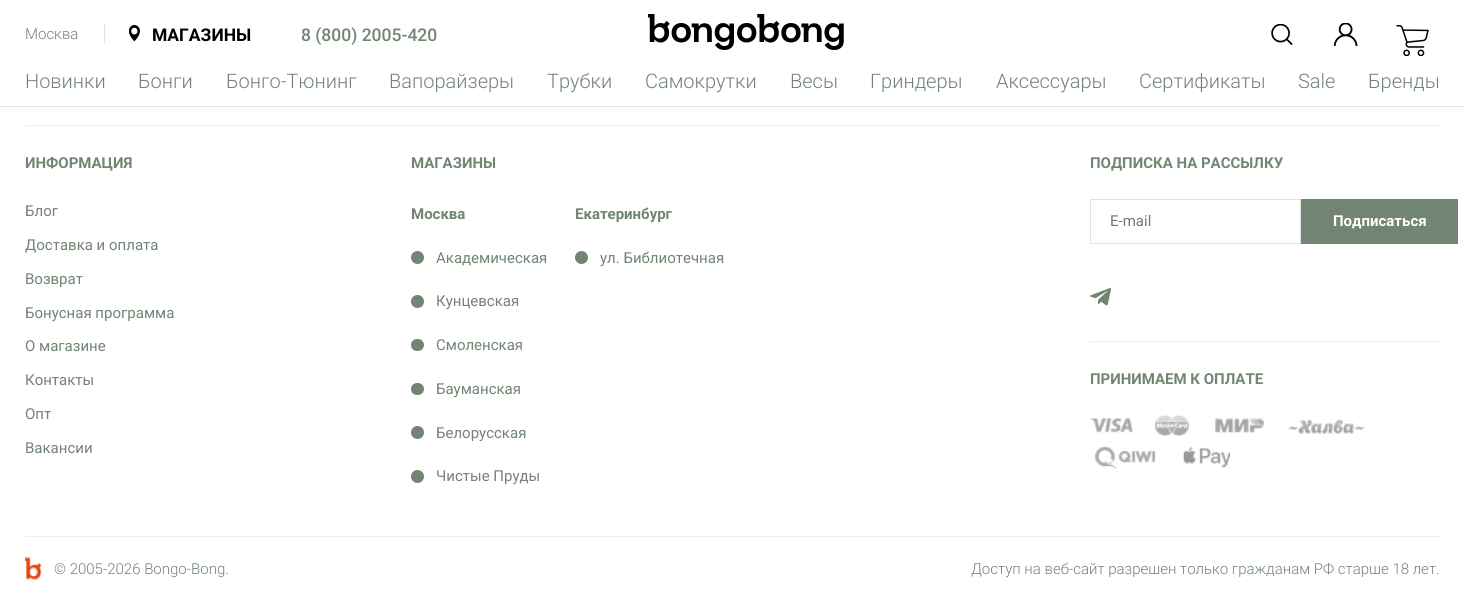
#include <cairo/cairo.h>
#include <math.h>
#include <stddef.h>

typedef struct { double x, y; const char *s; } line_t;
static cairo_t *cr;

static void rgb(unsigned color)
{
	cairo_set_source_rgb(cr, (color >> 16) / 255.0, (color >> 8 & 255) / 255.0, (color & 255) / 255.0);
}

static void rrect(double x, double y, double w, double h, double r)
{
	cairo_new_sub_path(cr);
	cairo_arc(cr, x + w - r, y + h - r, r, 0, M_PI / 2);
	cairo_arc(cr, x + r, y + h - r, r, M_PI / 2, M_PI);
	cairo_arc(cr, x + r, y + r, r, M_PI, 1.5 * M_PI);
	cairo_arc(cr, x + w - r, y + r, r, 1.5 * M_PI, 2 * M_PI);
	cairo_close_path(cr);
}

static void image(const char *path, double x, double y, double w, double h)
{
	cairo_surface_t *image = cairo_image_surface_create_from_png(path);
	cairo_save(cr);
	cairo_set_source_surface(cr, image, x, y);
	cairo_rectangle(cr, x, y, w, h);
	cairo_fill(cr);
	cairo_restore(cr);
	cairo_surface_destroy(image);
}

int main(void) {
	cairo_surface_t *surface = cairo_image_surface_create(CAIRO_FORMAT_RGB24, 1464, 600);
	cr = cairo_create(surface);
	cairo_font_options_t *options = cairo_font_options_create();
	cairo_font_options_set_hint_metrics(options, CAIRO_HINT_METRICS_OFF);
	cairo_font_options_set_hint_style(options, CAIRO_HINT_STYLE_NONE);
	cairo_set_font_options(cr, options);
	cairo_set_miter_limit(cr, 4);
	rgb(0xffffff);
	cairo_paint(cr);
	rgb(0xe3e3e3);
	cairo_rectangle(cr, 0, 106, 1464, 1);
	cairo_fill(cr);
	cairo_rectangle(cr, 104, 24, 1, 19);
	cairo_fill(cr);
	image("img/1.png", 129, 25, 11, 16);
	image("img/2.png", 648, 14, 196, 36);
	image("img/3.png", 1271, 24, 22, 21);
	image("img/4.png", 1334, 23, 24, 23);
	image("img/5.png", 1396, 25, 33, 31);
	rgb(0xeeeeee);
	cairo_rectangle(cr, 25, 125, 1415, 1);
	cairo_fill(cr);
	cairo_rectangle(cr, 25, 536, 1415, 1);
	cairo_fill(cr);
	rgb(0x728472);
	cairo_arc(cr, 417.5, 257.5, 6.5, 0, 2 * M_PI);
	cairo_fill(cr);
	cairo_arc(cr, 417.5, 301.5, 6.5, 0, 2 * M_PI);
	cairo_fill(cr);
	rrect(411, 339, 13, 12, 6);
	cairo_fill(cr);
	rrect(411, 383, 13, 12, 6);
	cairo_fill(cr);
	cairo_arc(cr, 417.5, 432.5, 6.5, 0, 2 * M_PI);
	cairo_fill(cr);
	cairo_arc(cr, 417.5, 476.5, 6.5, 0, 2 * M_PI);
	cairo_fill(cr);
	cairo_arc(cr, 581.5, 257.5, 6.5, 0, 2 * M_PI);
	cairo_fill(cr);
	cairo_rectangle(cr, 1090.5, 199.5, 210, 44);
	rgb(0xe3e3e3);
	cairo_set_line_width(cr, 1);
	cairo_stroke(cr);
	rgb(0x728472);
	cairo_rectangle(cr, 1301, 199, 157, 45);
	cairo_fill(cr);
	image("img/6.png", 1090, 288, 21, 18);
	rgb(0xeeeeee);
	cairo_rectangle(cr, 1090, 341, 350, 1);
	cairo_fill(cr);
	image("img/7.png", 1090, 418, 43, 15);
	image("img/8.png", 1155, 414, 34, 23);
	image("img/9.png", 1215, 418, 50, 15);
	image("img/10.png", 1288, 419, 76, 15);
	image("img/11.png", 1094, 446, 62, 23);
	image("img/12.png", 1183, 447, 47, 21);
	image("img/13.png", 25, 557, 17, 23);
	cairo_select_font_face(cr, "Roboto Light", CAIRO_FONT_SLANT_NORMAL, CAIRO_FONT_WEIGHT_NORMAL);
	cairo_set_font_size(cr, 15);
	rgb(0x728472);
	cairo_move_to(cr, 25, 39);
	cairo_show_text(cr, "Москва");
	cairo_select_font_face(cr, "Roboto", CAIRO_FONT_SLANT_NORMAL, CAIRO_FONT_WEIGHT_BOLD);
	cairo_set_font_size(cr, 17.5);
	rgb(0x000000);
	cairo_move_to(cr, 152, 41);
	cairo_show_text(cr, "МАГАЗИНЫ");
	cairo_select_font_face(cr, "Roboto Medium", CAIRO_FONT_SLANT_NORMAL, CAIRO_FONT_WEIGHT_NORMAL);
	rgb(0x728472);
	cairo_move_to(cr, 301, 41);
	cairo_show_text(cr, "8 (800) 2005-420");
	cairo_select_font_face(cr, "Roboto Light", CAIRO_FONT_SLANT_NORMAL, CAIRO_FONT_WEIGHT_NORMAL);
	cairo_set_font_size(cr, 20);
	{
		static const line_t items[] = {
			{25, 88, "Новинки"},
			{138, 88, "Бонги"},
			{226, 88, "Бонго-Тюнинг"},
			{389, 88, "Вапорайзеры"},
			{547, 88, "Трубки"},
			{645, 88, "Самокрутки"},
			{790, 88, "Весы"},
			{870, 88, "Гриндеры"},
			{996, 88, "Аксессуары"},
			{1139, 88, "Сертификаты"},
			{1298, 88, "Sale"},
			{1368, 88, "Бренды"},
		};
		for (size_t i = 0; i < sizeof items / sizeof *items; i++) {
			cairo_move_to(cr, items[i].x, items[i].y);
			cairo_show_text(cr, items[i].s);
		}
	}
	cairo_select_font_face(cr, "Roboto", CAIRO_FONT_SLANT_NORMAL, CAIRO_FONT_WEIGHT_BOLD);
	cairo_set_font_size(cr, 15);
	cairo_move_to(cr, 25, 168);
	cairo_show_text(cr, "ИНФОРМАЦИЯ");
	cairo_select_font_face(cr, "Roboto", CAIRO_FONT_SLANT_NORMAL, CAIRO_FONT_WEIGHT_NORMAL);
	{
		static const line_t items[] = {
			{25, 216, "Блог"},
			{25, 250, "Доставка и оплата"},
			{25, 284, "Возврат"},
			{25, 318, "Бонусная программа"},
			{25, 351, "О магазине"},
			{25, 385, "Контакты"},
			{25, 419, "Опт"},
			{25, 453, "Вакансии"},
		};
		for (size_t i = 0; i < sizeof items / sizeof *items; i++) {
			cairo_move_to(cr, items[i].x, items[i].y);
			cairo_show_text(cr, items[i].s);
		}
	}
	cairo_select_font_face(cr, "Roboto", CAIRO_FONT_SLANT_NORMAL, CAIRO_FONT_WEIGHT_BOLD);
	cairo_move_to(cr, 411, 168);
	cairo_show_text(cr, "МАГАЗИНЫ");
	cairo_move_to(cr, 411, 219);
	cairo_show_text(cr, "Москва");
	cairo_select_font_face(cr, "Roboto", CAIRO_FONT_SLANT_NORMAL, CAIRO_FONT_WEIGHT_NORMAL);
	{
		static const line_t items[] = {
			{436, 263, "Академическая"},
			{436, 306, "Кунцевская"},
			{436, 350, "Смоленская"},
			{436, 394, "Бауманская"},
			{436, 438, "Белорусская"},
			{436, 481, "Чистые Пруды"},
		};
		for (size_t i = 0; i < sizeof items / sizeof *items; i++) {
			cairo_move_to(cr, items[i].x, items[i].y);
			cairo_show_text(cr, items[i].s);
		}
	}
	cairo_select_font_face(cr, "Roboto", CAIRO_FONT_SLANT_NORMAL, CAIRO_FONT_WEIGHT_BOLD);
	cairo_move_to(cr, 575, 219);
	cairo_show_text(cr, "Екатеринбург");
	cairo_select_font_face(cr, "Roboto", CAIRO_FONT_SLANT_NORMAL, CAIRO_FONT_WEIGHT_NORMAL);
	cairo_move_to(cr, 600, 263);
	cairo_show_text(cr, "ул. Библиотечная");
	cairo_select_font_face(cr, "Roboto", CAIRO_FONT_SLANT_NORMAL, CAIRO_FONT_WEIGHT_BOLD);
	cairo_move_to(cr, 1090, 168);
	cairo_show_text(cr, "ПОДПИСКА НА РАССЫЛКУ");
	cairo_select_font_face(cr, "Roboto", CAIRO_FONT_SLANT_NORMAL, CAIRO_FONT_WEIGHT_NORMAL);
	rgb(0x757575);
	cairo_move_to(cr, 1110, 226);
	cairo_show_text(cr, "E-mail");
	cairo_select_font_face(cr, "Roboto", CAIRO_FONT_SLANT_NORMAL, CAIRO_FONT_WEIGHT_BOLD);
	rgb(0xffffff);
	cairo_move_to(cr, 1333, 226);
	cairo_show_text(cr, "Подписаться");
	rgb(0x728472);
	cairo_move_to(cr, 1090, 384);
	cairo_show_text(cr, "ПРИНИМАЕМ К ОПЛАТЕ");
	cairo_select_font_face(cr, "Roboto Light", CAIRO_FONT_SLANT_NORMAL, CAIRO_FONT_WEIGHT_NORMAL);
	cairo_move_to(cr, 54, 574);
	cairo_show_text(cr, "© 2005-2026 Bongo-Bong.");
	cairo_move_to(cr, 971, 574);
	cairo_show_text(cr, "Доступ на веб-сайт разрешен только гражданам РФ старше 18 лет.");
	cairo_surface_write_to_png(surface, "page.png");
	cairo_font_options_destroy(options);
	cairo_destroy(cr);
	cairo_surface_destroy(surface);
	return 0;
}
